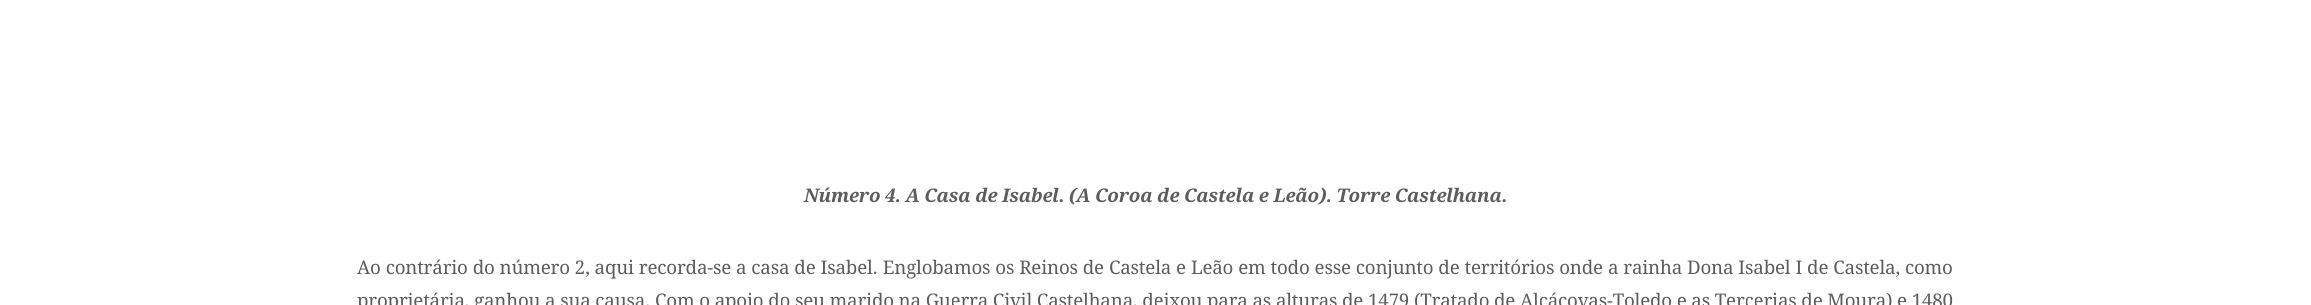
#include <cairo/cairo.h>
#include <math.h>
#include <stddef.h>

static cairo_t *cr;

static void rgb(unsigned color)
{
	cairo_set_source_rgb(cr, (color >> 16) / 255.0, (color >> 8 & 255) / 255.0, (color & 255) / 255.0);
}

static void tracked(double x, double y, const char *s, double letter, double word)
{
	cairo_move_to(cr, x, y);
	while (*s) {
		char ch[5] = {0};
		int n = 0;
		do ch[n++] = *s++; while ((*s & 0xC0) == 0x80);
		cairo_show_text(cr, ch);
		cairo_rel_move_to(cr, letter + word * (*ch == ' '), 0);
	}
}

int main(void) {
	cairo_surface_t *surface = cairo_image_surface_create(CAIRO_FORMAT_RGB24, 2311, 305);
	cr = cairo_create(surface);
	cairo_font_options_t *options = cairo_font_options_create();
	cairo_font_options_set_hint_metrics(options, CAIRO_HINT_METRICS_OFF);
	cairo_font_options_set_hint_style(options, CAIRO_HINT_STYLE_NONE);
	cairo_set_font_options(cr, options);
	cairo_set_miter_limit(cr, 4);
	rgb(0xffffff);
	cairo_paint(cr);
	cairo_select_font_face(cr, "Droid Serif", CAIRO_FONT_SLANT_ITALIC, CAIRO_FONT_WEIGHT_BOLD);
	cairo_set_font_size(cr, 18.75);
	rgb(0x5c5c5c);
	tracked(804, 202, "Número 4. A Casa de Isabel. (A Coroa de Castela e Leão). Torre Castelhana.", -0.19, 0);
	cairo_select_font_face(cr, "Droid Serif", CAIRO_FONT_SLANT_NORMAL, CAIRO_FONT_WEIGHT_NORMAL);
	tracked(357, 274, "Ao contrário do número 2, aqui recorda-se a casa de Isabel. Englobamos os Reinos de Castela e Leão em todo esse conjunto de territórios onde a rainha Dona Isabel I de Castela, como", -0.19, 0.3);
	tracked(357, 307, "proprietária, ganhou a sua causa. Com o apoio do seu marido na Guerra Civil Castelhana, deixou para as alturas de 1479 (Tratado de Alcáçovas-Toledo e as Tercerias de Moura) e 1480", -0.19, 0.1);
	cairo_surface_write_to_png(surface, "page.png");
	cairo_font_options_destroy(options);
	cairo_destroy(cr);
	cairo_surface_destroy(surface);
	return 0;
}
